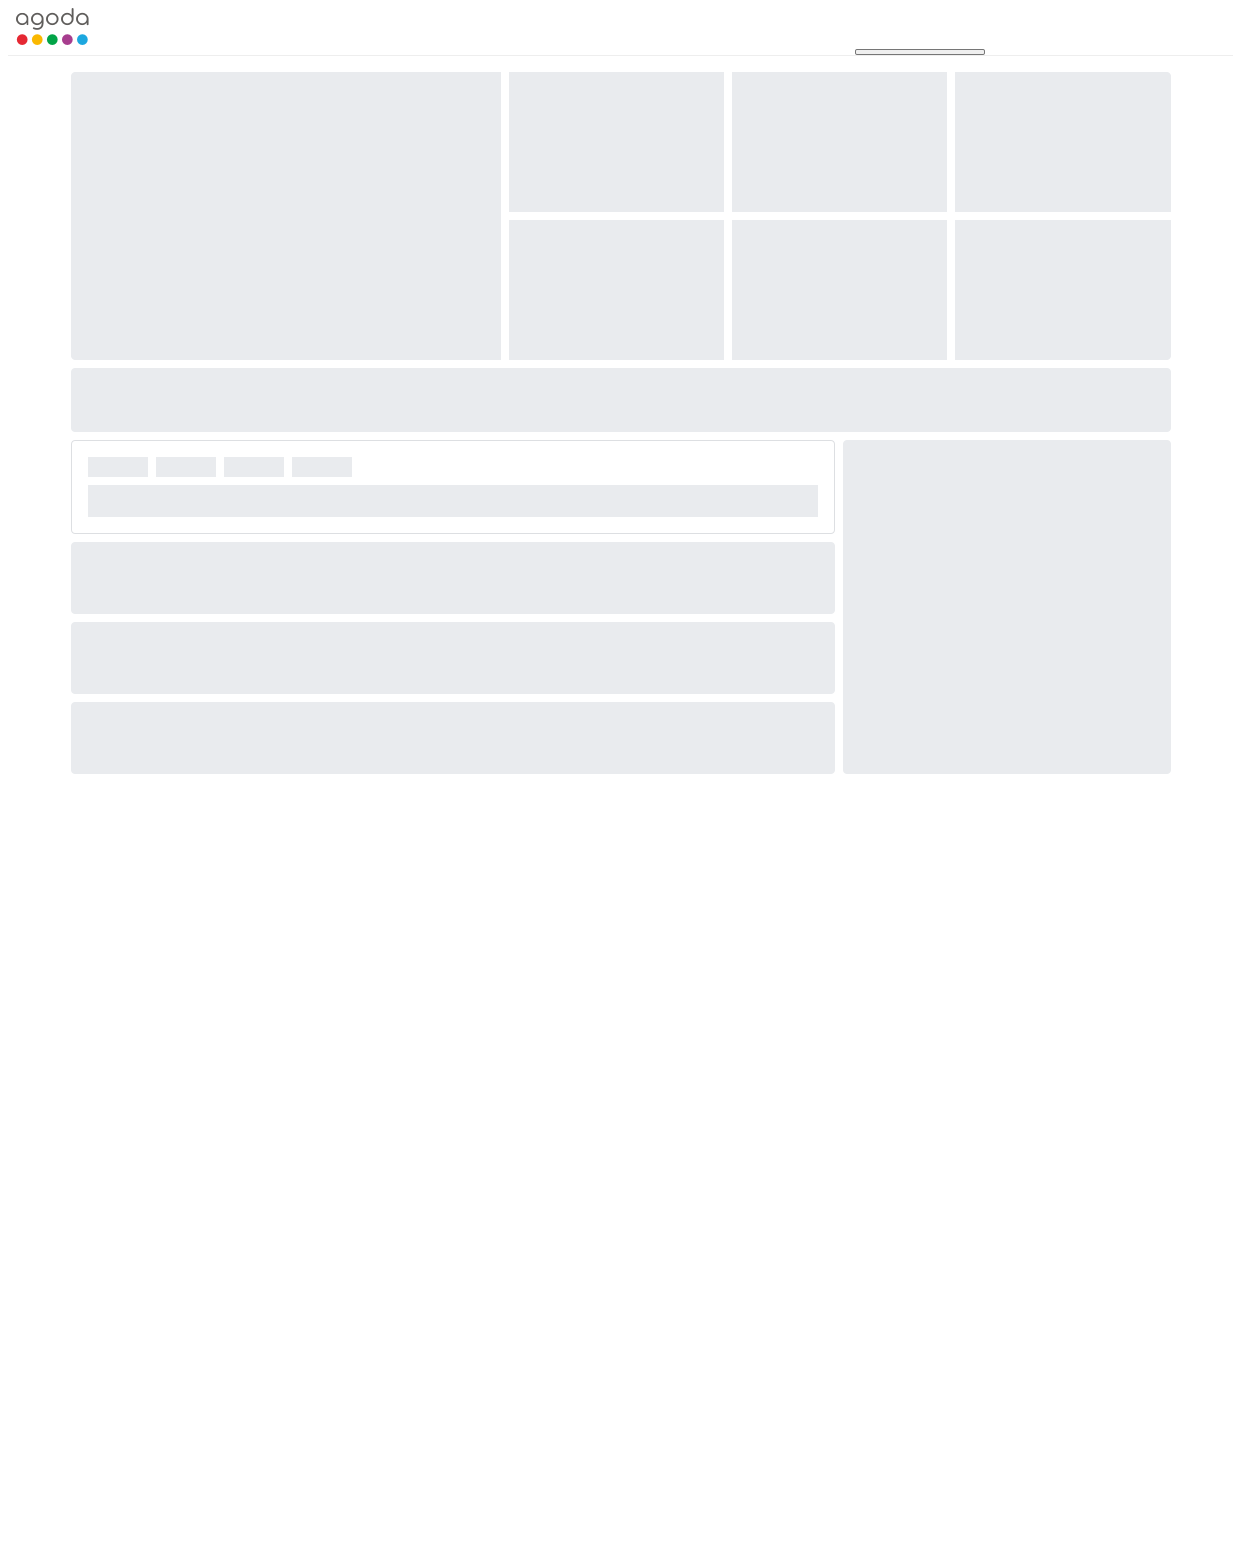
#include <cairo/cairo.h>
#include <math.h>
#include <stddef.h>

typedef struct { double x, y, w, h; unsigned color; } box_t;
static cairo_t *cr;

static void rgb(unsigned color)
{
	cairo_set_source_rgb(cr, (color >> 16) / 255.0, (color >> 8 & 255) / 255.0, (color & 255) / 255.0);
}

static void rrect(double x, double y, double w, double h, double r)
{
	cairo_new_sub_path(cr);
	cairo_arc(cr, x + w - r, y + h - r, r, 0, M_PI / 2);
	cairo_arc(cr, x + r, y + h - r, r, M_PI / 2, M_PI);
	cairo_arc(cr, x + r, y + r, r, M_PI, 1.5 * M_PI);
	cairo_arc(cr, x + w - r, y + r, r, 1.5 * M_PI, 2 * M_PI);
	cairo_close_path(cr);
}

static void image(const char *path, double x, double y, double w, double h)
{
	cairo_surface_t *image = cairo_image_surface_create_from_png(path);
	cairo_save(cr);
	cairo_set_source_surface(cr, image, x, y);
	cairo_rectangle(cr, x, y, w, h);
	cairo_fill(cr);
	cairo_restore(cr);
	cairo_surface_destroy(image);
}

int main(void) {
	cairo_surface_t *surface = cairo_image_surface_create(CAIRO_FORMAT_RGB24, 1241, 1544);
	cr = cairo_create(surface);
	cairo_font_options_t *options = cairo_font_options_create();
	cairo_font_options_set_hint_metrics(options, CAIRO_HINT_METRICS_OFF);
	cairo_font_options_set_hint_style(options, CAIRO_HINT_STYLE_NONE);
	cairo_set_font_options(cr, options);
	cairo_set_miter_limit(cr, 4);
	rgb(0xffffff);
	cairo_paint(cr);
	image("img/1.png", 16, 8, 73, 37);
	rgb(0xefefef);
	rrect(855.5, 49.5, 129, 5, 1.5);
	cairo_fill_preserve(cr);
	rgb(0x767676);
	cairo_set_line_width(cr, 1);
	cairo_stroke(cr);
	rgb(0xeeeeee);
	cairo_rectangle(cr, 8, 55, 1225, 1);
	cairo_fill(cr);
	rgb(0xe9ebee);
	cairo_new_path(cr);
	cairo_move_to(cr, 75, 72);
	cairo_line_to(cr, 501, 72);
	cairo_line_to(cr, 501, 360);
	cairo_line_to(cr, 75, 360);
	cairo_curve_to(cr, 73, 360, 71, 358, 71, 356);
	cairo_line_to(cr, 71, 76);
	cairo_curve_to(cr, 71, 74, 73, 72, 75, 72);
	cairo_close_path(cr);
	cairo_fill(cr);
	{
		static const box_t items[] = {
			{509, 72, 215, 140, 0xe9ebee},
			{509, 220, 215, 140, 0xe9ebee},
			{732, 72, 215, 140, 0xe9ebee},
			{732, 220, 215, 140, 0xe9ebee},
		};
		for (size_t i = 0; i < sizeof items / sizeof *items; i++) {
			rgb(items[i].color);
			cairo_rectangle(cr, items[i].x, items[i].y, items[i].w, items[i].h);
			cairo_fill(cr);
		}
	}
	cairo_new_path(cr);
	cairo_move_to(cr, 955, 72);
	cairo_line_to(cr, 1167, 72);
	cairo_curve_to(cr, 1169, 72, 1171, 74, 1171, 76);
	cairo_line_to(cr, 1171, 212);
	cairo_line_to(cr, 955, 212);
	cairo_close_path(cr);
	cairo_fill(cr);
	cairo_new_path(cr);
	cairo_move_to(cr, 955, 220);
	cairo_line_to(cr, 1171, 220);
	cairo_line_to(cr, 1171, 356);
	cairo_curve_to(cr, 1171, 358, 1169, 360, 1167, 360);
	cairo_line_to(cr, 955, 360);
	cairo_close_path(cr);
	cairo_fill(cr);
	rrect(71, 368, 1100, 64, 4);
	cairo_fill(cr);
	rrect(71.5, 440.5, 763, 93, 3.5);
	rgb(0xdddfe2);
	cairo_stroke(cr);
	{
		static const box_t items[] = {
			{88, 457, 60, 20, 0xe9ebee},
			{156, 457, 60, 20, 0xe9ebee},
			{224, 457, 60, 20, 0xe9ebee},
			{292, 457, 60, 20, 0xe9ebee},
			{88, 485, 730, 32, 0xe9ebee},
		};
		for (size_t i = 0; i < sizeof items / sizeof *items; i++) {
			rgb(items[i].color);
			cairo_rectangle(cr, items[i].x, items[i].y, items[i].w, items[i].h);
			cairo_fill(cr);
		}
	}
	rrect(71, 542, 764, 72, 4);
	cairo_fill(cr);
	rrect(71, 622, 764, 72, 4);
	cairo_fill(cr);
	rrect(71, 702, 764, 72, 4);
	cairo_fill(cr);
	rrect(843, 440, 328, 334, 4);
	cairo_fill(cr);
	cairo_surface_write_to_png(surface, "page.png");
	cairo_font_options_destroy(options);
	cairo_destroy(cr);
	cairo_surface_destroy(surface);
	return 0;
}
